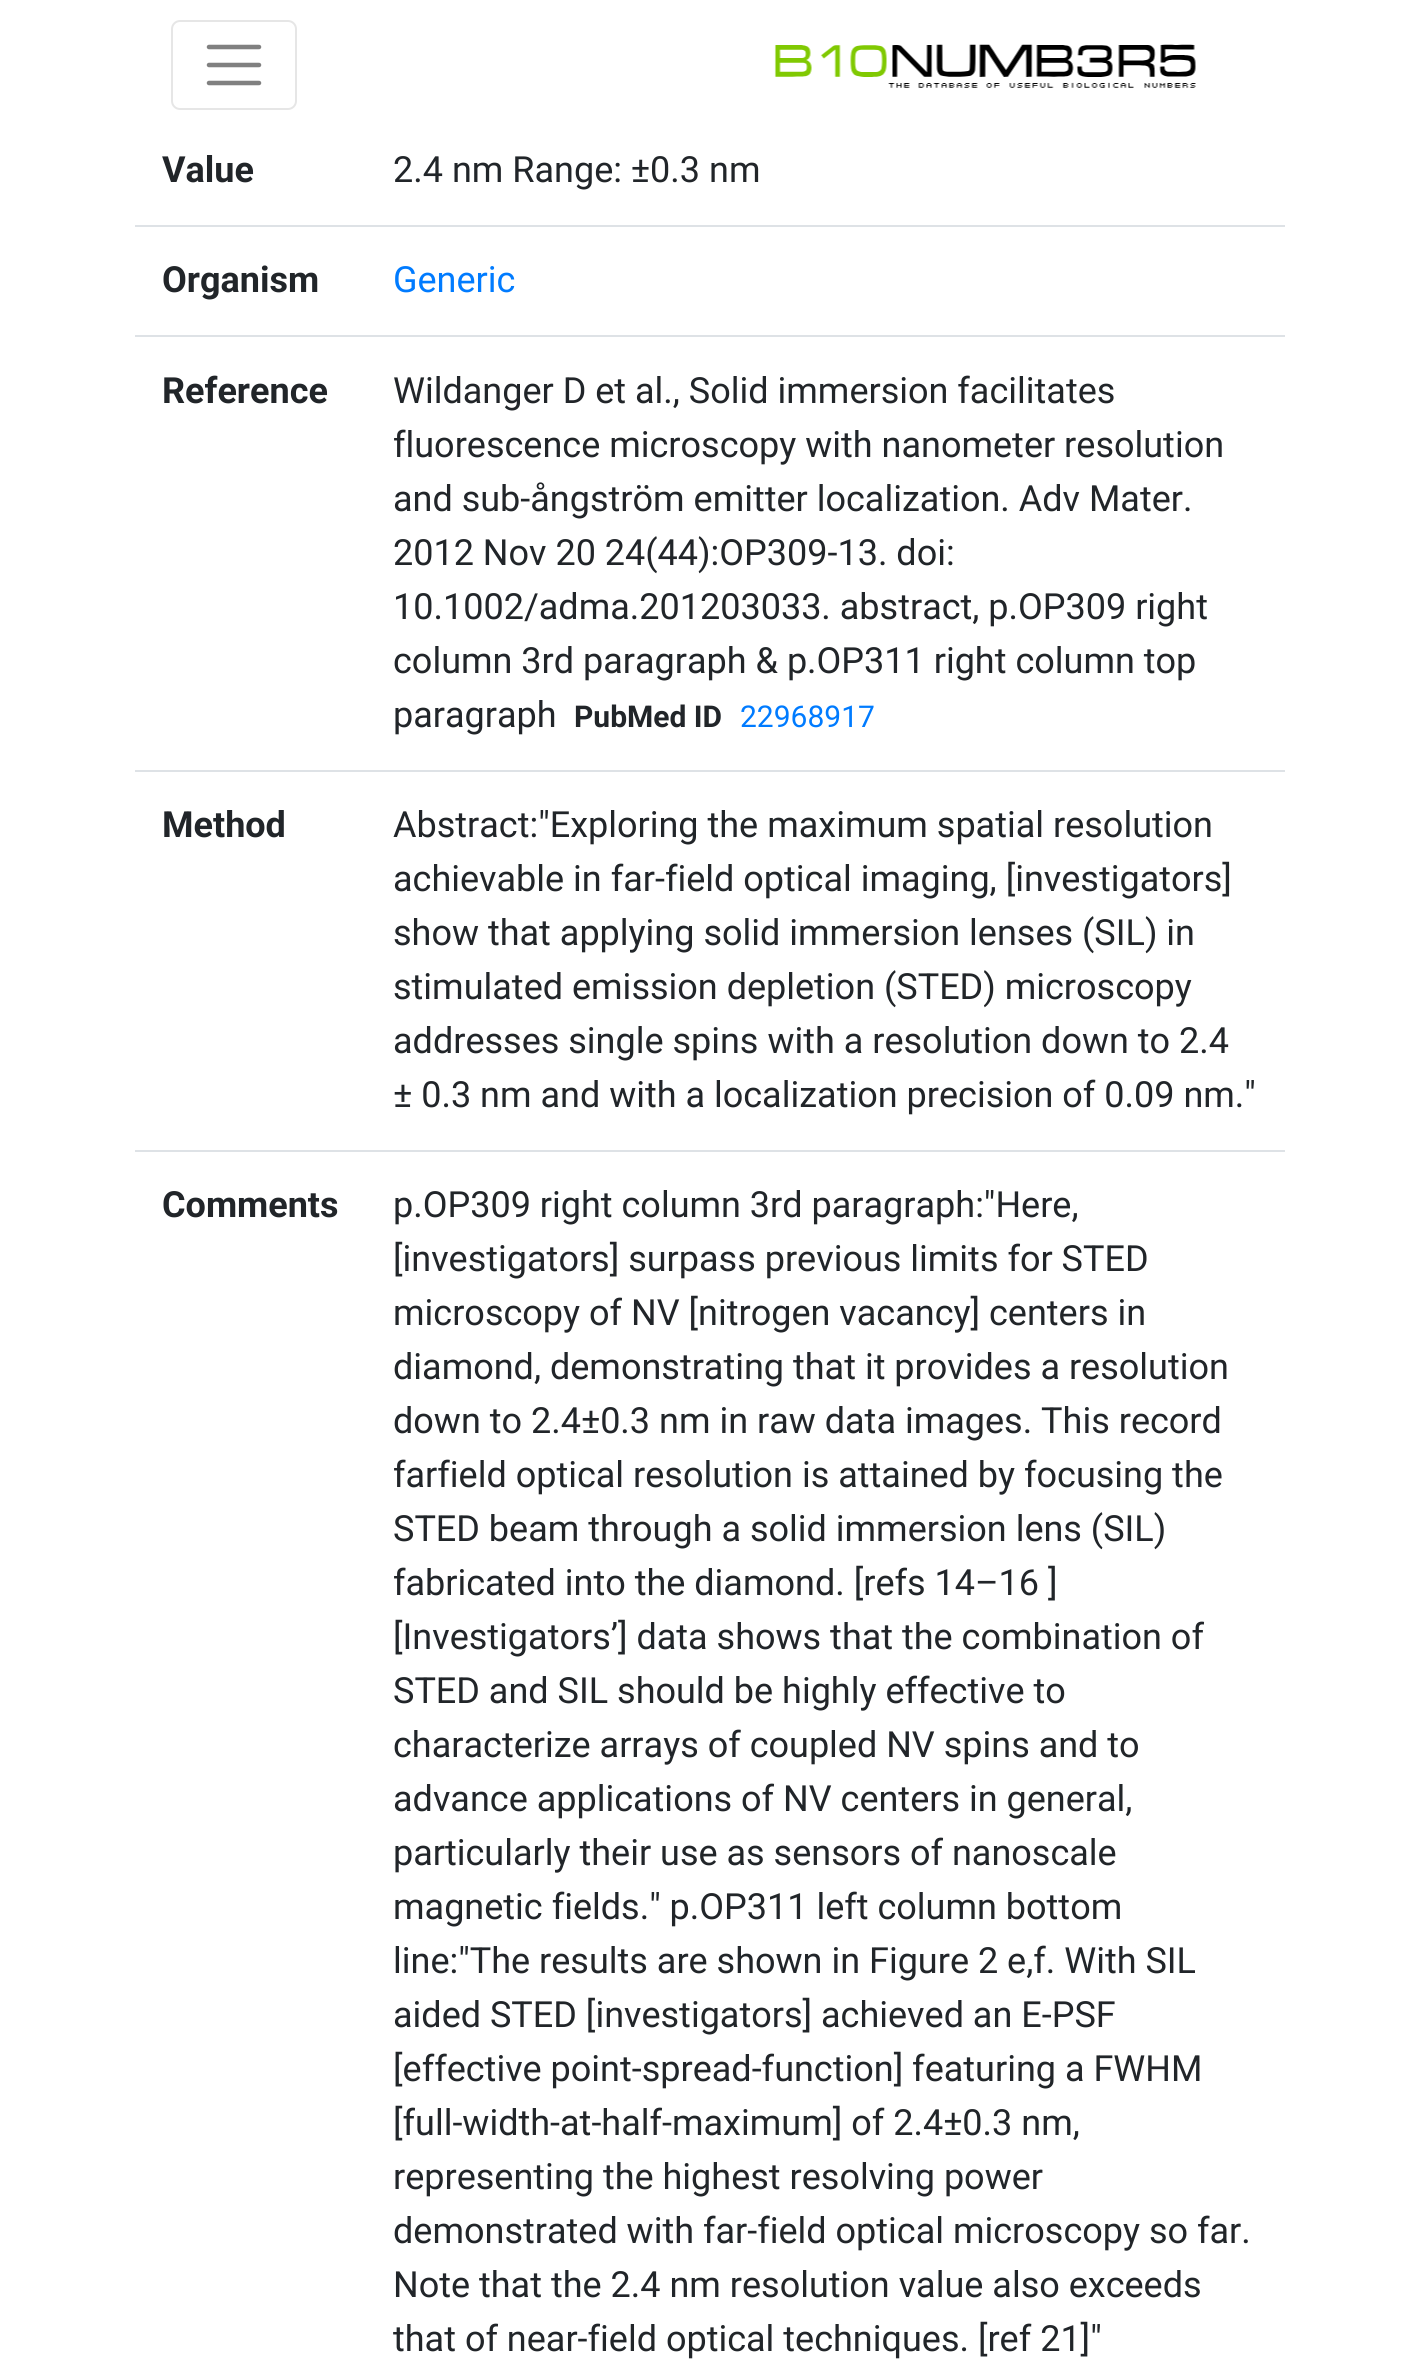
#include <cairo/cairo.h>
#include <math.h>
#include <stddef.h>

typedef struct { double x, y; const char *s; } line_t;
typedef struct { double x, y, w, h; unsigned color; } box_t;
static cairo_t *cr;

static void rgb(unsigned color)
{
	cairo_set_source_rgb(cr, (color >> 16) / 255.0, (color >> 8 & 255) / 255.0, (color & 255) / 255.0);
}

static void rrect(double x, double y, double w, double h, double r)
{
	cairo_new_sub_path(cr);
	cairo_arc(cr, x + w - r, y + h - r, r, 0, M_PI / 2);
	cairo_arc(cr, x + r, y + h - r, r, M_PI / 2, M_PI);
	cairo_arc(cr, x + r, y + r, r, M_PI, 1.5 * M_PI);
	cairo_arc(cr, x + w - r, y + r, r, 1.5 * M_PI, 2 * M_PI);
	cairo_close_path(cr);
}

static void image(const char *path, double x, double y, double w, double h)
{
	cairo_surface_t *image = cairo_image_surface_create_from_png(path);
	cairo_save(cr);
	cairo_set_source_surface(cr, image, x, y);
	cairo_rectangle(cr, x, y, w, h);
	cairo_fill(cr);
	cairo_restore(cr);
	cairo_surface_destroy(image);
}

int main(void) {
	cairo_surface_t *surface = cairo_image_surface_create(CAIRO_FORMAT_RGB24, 1417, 2362);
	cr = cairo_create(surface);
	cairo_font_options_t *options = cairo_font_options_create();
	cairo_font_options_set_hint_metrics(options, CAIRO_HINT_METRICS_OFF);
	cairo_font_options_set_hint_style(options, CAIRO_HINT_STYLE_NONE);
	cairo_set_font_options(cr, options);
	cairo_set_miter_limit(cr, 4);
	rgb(0xffffff);
	cairo_paint(cr);
	rrect(172, 21, 124, 88, 8);
	rgb(0xe6e6e6);
	cairo_stroke(cr);
	cairo_new_path(cr);
	cairo_move_to(cr, 209, 47);
	cairo_line_to(cr, 259, 47);
	cairo_move_to(cr, 209, 65);
	cairo_line_to(cr, 259, 65);
	cairo_move_to(cr, 209, 83);
	cairo_line_to(cr, 259, 83);
	rgb(0x808080);
	cairo_set_line_width(cr, 4.5);
	cairo_set_line_cap(cr, CAIRO_LINE_CAP_ROUND);
	cairo_stroke(cr);
	image("img/1.png", 774, 44, 422, 44);
	{
		static const box_t items[] = {
			{135, 225, 1150, 2, 0xdee2e6},
			{135, 335, 1150, 2, 0xdee2e6},
			{135, 770, 1150, 2, 0xdee2e6},
			{135, 1150, 1150, 2, 0xdee2e6},
		};
		for (size_t i = 0; i < sizeof items / sizeof *items; i++) {
			rgb(items[i].color);
			cairo_rectangle(cr, items[i].x, items[i].y, items[i].w, items[i].h);
			cairo_fill(cr);
		}
	}
	cairo_select_font_face(cr, "Roboto", CAIRO_FONT_SLANT_NORMAL, CAIRO_FONT_WEIGHT_BOLD);
	cairo_set_font_size(cr, 36);
	rgb(0x212529);
	cairo_move_to(cr, 162, 182);
	cairo_show_text(cr, "Value");
	cairo_select_font_face(cr, "Roboto", CAIRO_FONT_SLANT_NORMAL, CAIRO_FONT_WEIGHT_NORMAL);
	cairo_move_to(cr, 393, 182);
	cairo_show_text(cr, "2.4 nm Range: ±0.3 nm");
	cairo_select_font_face(cr, "Roboto", CAIRO_FONT_SLANT_NORMAL, CAIRO_FONT_WEIGHT_BOLD);
	cairo_move_to(cr, 162, 292);
	cairo_show_text(cr, "Organism");
	cairo_select_font_face(cr, "Roboto", CAIRO_FONT_SLANT_NORMAL, CAIRO_FONT_WEIGHT_NORMAL);
	rgb(0x007bff);
	cairo_move_to(cr, 393, 292);
	cairo_show_text(cr, "Generic");
	cairo_select_font_face(cr, "Roboto", CAIRO_FONT_SLANT_NORMAL, CAIRO_FONT_WEIGHT_BOLD);
	rgb(0x212529);
	cairo_move_to(cr, 162, 403);
	cairo_show_text(cr, "Reference");
	cairo_select_font_face(cr, "Roboto", CAIRO_FONT_SLANT_NORMAL, CAIRO_FONT_WEIGHT_NORMAL);
	{
		static const line_t items[] = {
			{393, 403, "Wildanger D et al., Solid immersion facilitates"},
			{393, 457, "fluorescence microscopy with nanometer resolution"},
			{393, 511, "and sub-ångström emitter localization. Adv Mater."},
			{393, 565, "2012 Nov 20 24(44):OP309-13. doi:"},
			{393, 619, "10.1002/adma.201203033. abstract, p.OP309 right"},
			{393, 673, "column 3rd paragraph & p.OP311 right column top"},
			{393, 727, "paragraph"},
		};
		for (size_t i = 0; i < sizeof items / sizeof *items; i++) {
			cairo_move_to(cr, items[i].x, items[i].y);
			cairo_show_text(cr, items[i].s);
		}
	}
	cairo_select_font_face(cr, "Roboto", CAIRO_FONT_SLANT_NORMAL, CAIRO_FONT_WEIGHT_BOLD);
	cairo_set_font_size(cr, 30);
	cairo_move_to(cr, 574, 727);
	cairo_show_text(cr, "PubMed ID");
	cairo_select_font_face(cr, "Roboto", CAIRO_FONT_SLANT_NORMAL, CAIRO_FONT_WEIGHT_NORMAL);
	rgb(0x007bff);
	cairo_move_to(cr, 740, 727);
	cairo_show_text(cr, "22968917");
	cairo_select_font_face(cr, "Roboto", CAIRO_FONT_SLANT_NORMAL, CAIRO_FONT_WEIGHT_BOLD);
	cairo_set_font_size(cr, 36);
	rgb(0x212529);
	cairo_move_to(cr, 162, 837);
	cairo_show_text(cr, "Method");
	cairo_select_font_face(cr, "Roboto", CAIRO_FONT_SLANT_NORMAL, CAIRO_FONT_WEIGHT_NORMAL);
	{
		static const line_t items[] = {
			{393, 837, "Abstract:\"Exploring the maximum spatial resolution"},
			{393, 891, "achievable in far-field optical imaging, [investigators]"},
			{393, 945, "show that applying solid immersion lenses (SIL) in"},
			{393, 999, "stimulated emission depletion (STED) microscopy"},
			{393, 1053, "addresses single spins with a resolution down to 2.4"},
			{393, 1107, "± 0.3 nm and with a localization precision of 0.09 nm.\""},
		};
		for (size_t i = 0; i < sizeof items / sizeof *items; i++) {
			cairo_move_to(cr, items[i].x, items[i].y);
			cairo_show_text(cr, items[i].s);
		}
	}
	cairo_select_font_face(cr, "Roboto", CAIRO_FONT_SLANT_NORMAL, CAIRO_FONT_WEIGHT_BOLD);
	cairo_move_to(cr, 162, 1217);
	cairo_show_text(cr, "Comments");
	cairo_select_font_face(cr, "Roboto", CAIRO_FONT_SLANT_NORMAL, CAIRO_FONT_WEIGHT_NORMAL);
	{
		static const line_t items[] = {
			{393, 1217, "p.OP309 right column 3rd paragraph:\"Here,"},
			{393, 1271, "[investigators] surpass previous limits for STED"},
			{393, 1325, "microscopy of NV [nitrogen vacancy] centers in"},
			{393, 1379, "diamond, demonstrating that it provides a resolution"},
			{393, 1433, "down to 2.4±0.3 nm in raw data images. This record"},
			{393, 1487, "farfield optical resolution is attained by focusing the"},
			{393, 1541, "STED beam through a solid immersion lens (SIL)"},
			{393, 1595, "fabricated into the diamond. [refs 14–16 ]"},
			{393, 1649, "[Investigators’] data shows that the combination of"},
			{393, 1703, "STED and SIL should be highly effective to"},
			{393, 1757, "characterize arrays of coupled NV spins and to"},
			{393, 1811, "advance applications of NV centers in general,"},
			{393, 1865, "particularly their use as sensors of nanoscale"},
			{393, 1919, "magnetic fields.\" p.OP311 left column bottom"},
			{393, 1973, "line:\"The results are shown in Figure 2 e,f. With SIL"},
			{393, 2027, "aided STED [investigators] achieved an E-PSF"},
			{393, 2081, "[effective point-spread-function] featuring a FWHM"},
			{393, 2135, "[full-width-at-half-maximum] of 2.4±0.3 nm,"},
			{393, 2189, "representing the highest resolving power"},
			{393, 2243, "demonstrated with far-field optical microscopy so far."},
			{393, 2297, "Note that the 2.4 nm resolution value also exceeds"},
			{393, 2351, "that of near-field optical techniques. [ref 21]\""},
		};
		for (size_t i = 0; i < sizeof items / sizeof *items; i++) {
			cairo_move_to(cr, items[i].x, items[i].y);
			cairo_show_text(cr, items[i].s);
		}
	}
	cairo_surface_write_to_png(surface, "page.png");
	cairo_font_options_destroy(options);
	cairo_destroy(cr);
	cairo_surface_destroy(surface);
	return 0;
}
